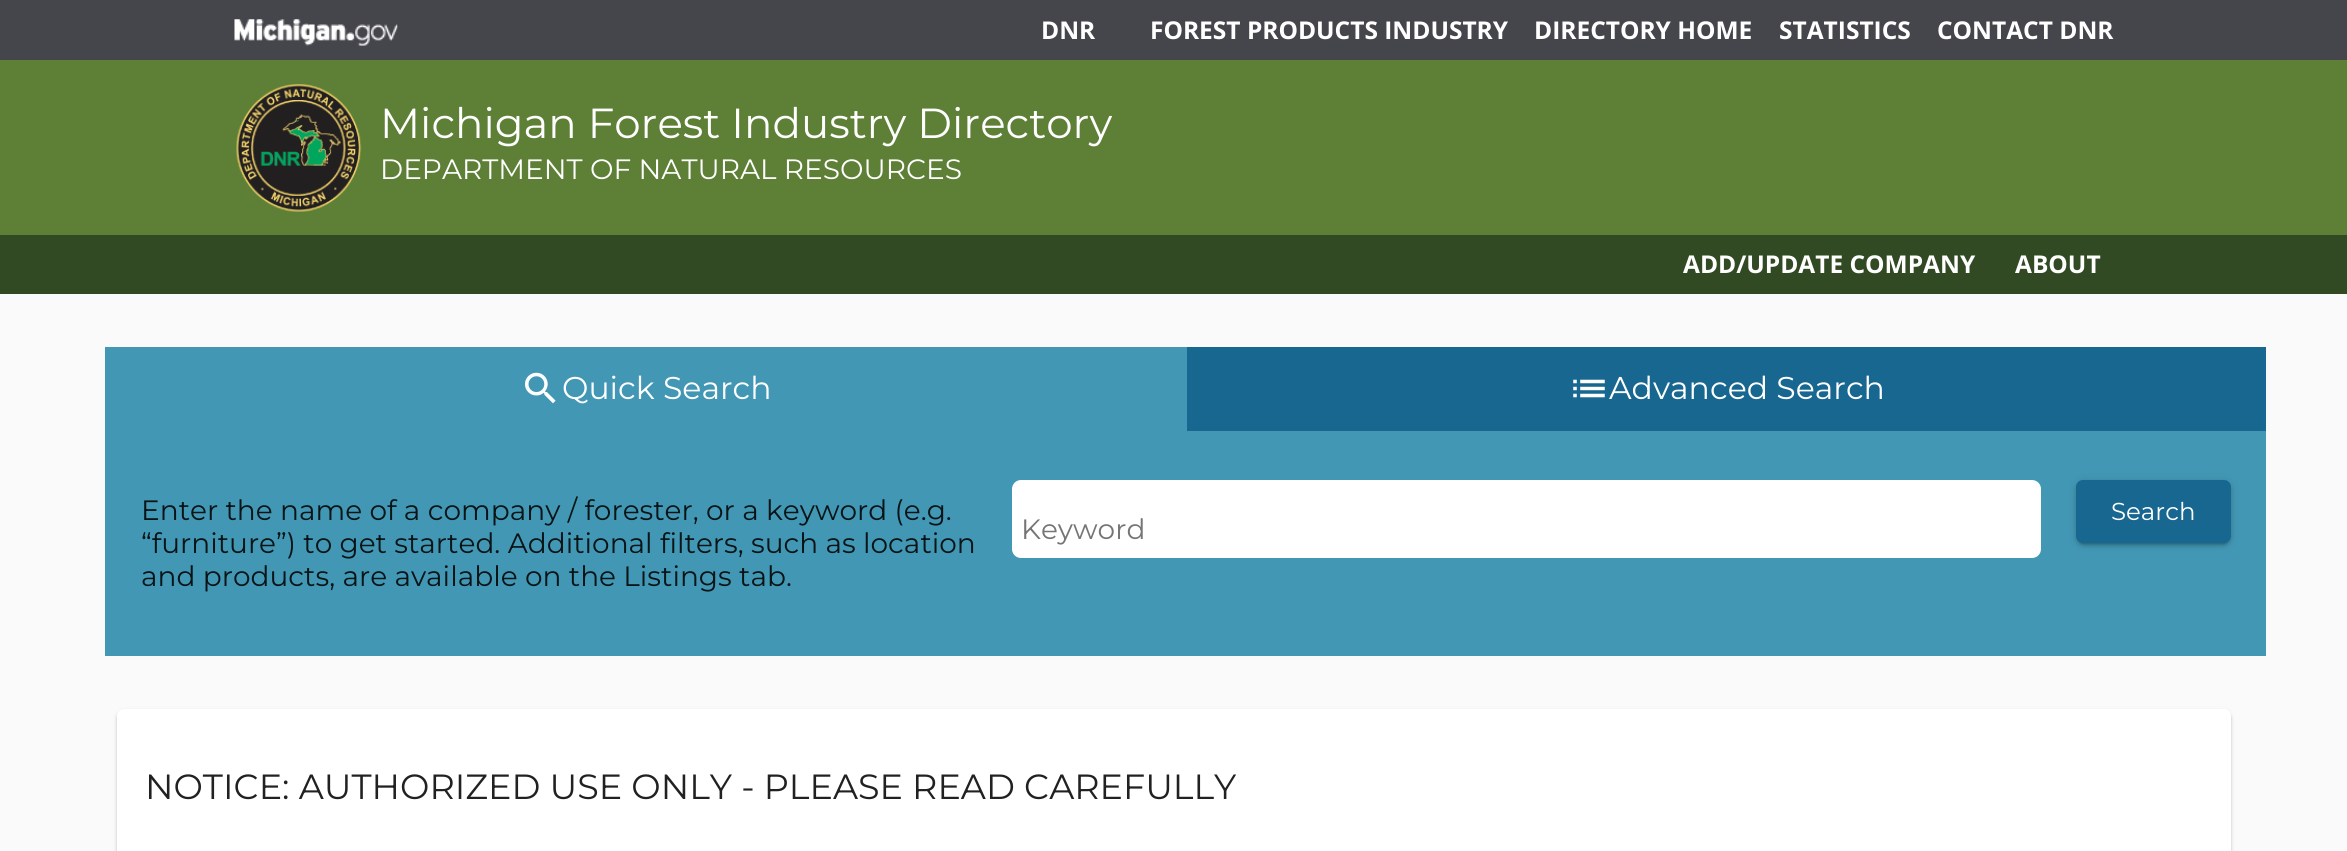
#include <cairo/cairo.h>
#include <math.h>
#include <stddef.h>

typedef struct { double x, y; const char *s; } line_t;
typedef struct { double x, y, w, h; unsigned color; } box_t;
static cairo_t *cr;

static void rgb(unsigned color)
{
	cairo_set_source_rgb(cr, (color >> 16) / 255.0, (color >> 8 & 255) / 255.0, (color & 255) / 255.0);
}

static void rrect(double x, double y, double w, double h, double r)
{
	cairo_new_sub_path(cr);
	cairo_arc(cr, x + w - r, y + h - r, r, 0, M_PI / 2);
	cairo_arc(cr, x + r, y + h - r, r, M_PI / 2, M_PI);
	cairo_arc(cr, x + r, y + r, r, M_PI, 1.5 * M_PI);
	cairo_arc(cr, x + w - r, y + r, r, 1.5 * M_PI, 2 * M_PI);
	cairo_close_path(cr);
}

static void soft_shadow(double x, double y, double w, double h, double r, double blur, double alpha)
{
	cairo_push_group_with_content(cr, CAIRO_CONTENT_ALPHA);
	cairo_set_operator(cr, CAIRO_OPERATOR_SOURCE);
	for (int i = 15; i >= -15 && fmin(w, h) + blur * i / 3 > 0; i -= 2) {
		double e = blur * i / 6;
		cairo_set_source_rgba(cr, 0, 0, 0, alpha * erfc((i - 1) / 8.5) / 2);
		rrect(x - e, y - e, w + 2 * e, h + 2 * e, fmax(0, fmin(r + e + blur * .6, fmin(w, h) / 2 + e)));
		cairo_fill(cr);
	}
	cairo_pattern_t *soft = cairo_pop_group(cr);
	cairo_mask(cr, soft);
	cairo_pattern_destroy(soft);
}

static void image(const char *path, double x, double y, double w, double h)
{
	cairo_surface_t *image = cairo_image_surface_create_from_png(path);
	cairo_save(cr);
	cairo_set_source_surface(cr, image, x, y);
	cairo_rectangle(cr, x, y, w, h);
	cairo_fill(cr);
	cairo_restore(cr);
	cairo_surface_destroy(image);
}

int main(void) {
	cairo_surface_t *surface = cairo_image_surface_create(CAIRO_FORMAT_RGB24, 2347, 851);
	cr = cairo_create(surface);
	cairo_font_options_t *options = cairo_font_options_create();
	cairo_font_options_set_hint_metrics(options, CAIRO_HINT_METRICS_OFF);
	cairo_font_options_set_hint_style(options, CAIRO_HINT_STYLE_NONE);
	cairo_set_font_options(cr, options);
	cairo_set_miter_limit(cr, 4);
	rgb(0xfafafa);
	cairo_paint(cr);
	rgb(0x45454c);
	cairo_rectangle(cr, 0, 0, 2347, 60);
	cairo_fill(cr);
	image("img/1.png", 234, 19, 164, 27);
	rgb(0x5d7f36);
	cairo_rectangle(cr, 0, 60, 2347, 175);
	cairo_fill(cr);
	image("img/2.png", 236, 84, 126, 128);
	{
		static const box_t items[] = {
			{0, 235, 2347, 59, 0x314a24},
			{1187, 347, 1079, 84, 0x176790},
			{105, 347, 1082, 84, 0x4297b4},
		};
		for (size_t i = 0; i < sizeof items / sizeof *items; i++) {
			rgb(items[i].color);
			cairo_rectangle(cr, items[i].x, items[i].y, items[i].w, items[i].h);
			cairo_fill(cr);
		}
	}
	image("img/3.png", 525, 372, 31, 32);
	image("img/4.png", 1573, 379, 32, 19);
	cairo_rectangle(cr, 105, 431, 2161, 225);
	cairo_fill(cr);
	rgb(0x000000);
	soft_shadow(2076, 481, 155, 63, 7, 4.5, 0.12);
	soft_shadow(2076, 483, 155, 63, 7, 2, 0.14);
	soft_shadow(2079, 488, 149, 56, 4, 1, 0.2);
	rgb(0x176790);
	rrect(2076, 480, 155, 63, 7);
	cairo_fill(cr);
	rgb(0xffffff);
	rrect(1012, 480, 1029, 78, 9);
	cairo_fill(cr);
	rgb(0x000000);
	soft_shadow(117, 711, 2114, 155, 7, 2.5, 0.12);
	soft_shadow(117, 711, 2114, 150, 7, 1, 0.14);
	rgb(0xffffff);
	cairo_new_path(cr);
	cairo_move_to(cr, 124, 709);
	cairo_line_to(cr, 2224, 709);
	cairo_curve_to(cr, 2228, 709, 2231, 712, 2231, 716);
	cairo_line_to(cr, 2231, 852);
	cairo_line_to(cr, 117, 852);
	cairo_line_to(cr, 117, 716);
	cairo_curve_to(cr, 117, 712, 120, 709, 124, 709);
	cairo_close_path(cr);
	cairo_fill(cr);
	cairo_select_font_face(cr, "Open Sans", CAIRO_FONT_SLANT_NORMAL, CAIRO_FONT_WEIGHT_BOLD);
	cairo_set_font_size(cr, 24.5);
	{
		static const line_t items[] = {
			{1041, 39, "DNR"},
			{1150, 39, "FOREST PRODUCTS INDUSTRY"},
			{1534, 39, "DIRECTORY HOME"},
			{1779, 39, "STATISTICS"},
			{1937, 39, "CONTACT DNR"},
		};
		for (size_t i = 0; i < sizeof items / sizeof *items; i++) {
			cairo_move_to(cr, items[i].x, items[i].y);
			cairo_show_text(cr, items[i].s);
		}
	}
	cairo_select_font_face(cr, "Montserrat Thin", CAIRO_FONT_SLANT_NORMAL, CAIRO_FONT_WEIGHT_NORMAL);
	cairo_set_font_size(cr, 42);
	cairo_move_to(cr, 380, 138);
	cairo_show_text(cr, "Michigan Forest Industry Directory");
	cairo_set_font_size(cr, 28);
	cairo_move_to(cr, 380, 179);
	cairo_show_text(cr, "DEPARTMENT OF NATURAL RESOURCES");
	cairo_select_font_face(cr, "Open Sans", CAIRO_FONT_SLANT_NORMAL, CAIRO_FONT_WEIGHT_BOLD);
	cairo_set_font_size(cr, 24.5);
	cairo_move_to(cr, 1683, 273);
	cairo_show_text(cr, "ADD/UPDATE COMPANY");
	cairo_move_to(cr, 2015, 273);
	cairo_show_text(cr, "ABOUT");
	cairo_select_font_face(cr, "Montserrat Thin", CAIRO_FONT_SLANT_NORMAL, CAIRO_FONT_WEIGHT_NORMAL);
	cairo_set_font_size(cr, 31.5);
	cairo_move_to(cr, 562, 399);
	cairo_show_text(cr, "Quick Search");
	cairo_move_to(cr, 1609, 399);
	cairo_show_text(cr, "Advanced Search");
	cairo_set_font_size(cr, 28);
	rgb(0x091417);
	{
		static const line_t items[] = {
			{141, 520, "Enter the name of a company / forester, or a keyword (e.g."},
			{141, 553, "“furniture”) to get started. Additional filters, such as location"},
			{141, 586, "and products, are available on the Listings tab."},
		};
		for (size_t i = 0; i < sizeof items / sizeof *items; i++) {
			cairo_move_to(cr, items[i].x, items[i].y);
			cairo_show_text(cr, items[i].s);
		}
	}
	cairo_set_font_size(cr, 24.5);
	rgb(0xffffff);
	cairo_move_to(cr, 2111, 520);
	cairo_show_text(cr, "Search");
	cairo_set_font_size(cr, 28);
	rgb(0x757575);
	cairo_move_to(cr, 1021, 539);
	cairo_show_text(cr, "Keyword");
	cairo_set_font_size(cr, 35);
	rgb(0x212121);
	cairo_move_to(cr, 145, 799);
	cairo_show_text(cr, "NOTICE: AUTHORIZED USE ONLY - PLEASE READ CAREFULLY");
	cairo_surface_write_to_png(surface, "page.png");
	cairo_font_options_destroy(options);
	cairo_destroy(cr);
	cairo_surface_destroy(surface);
	return 0;
}
